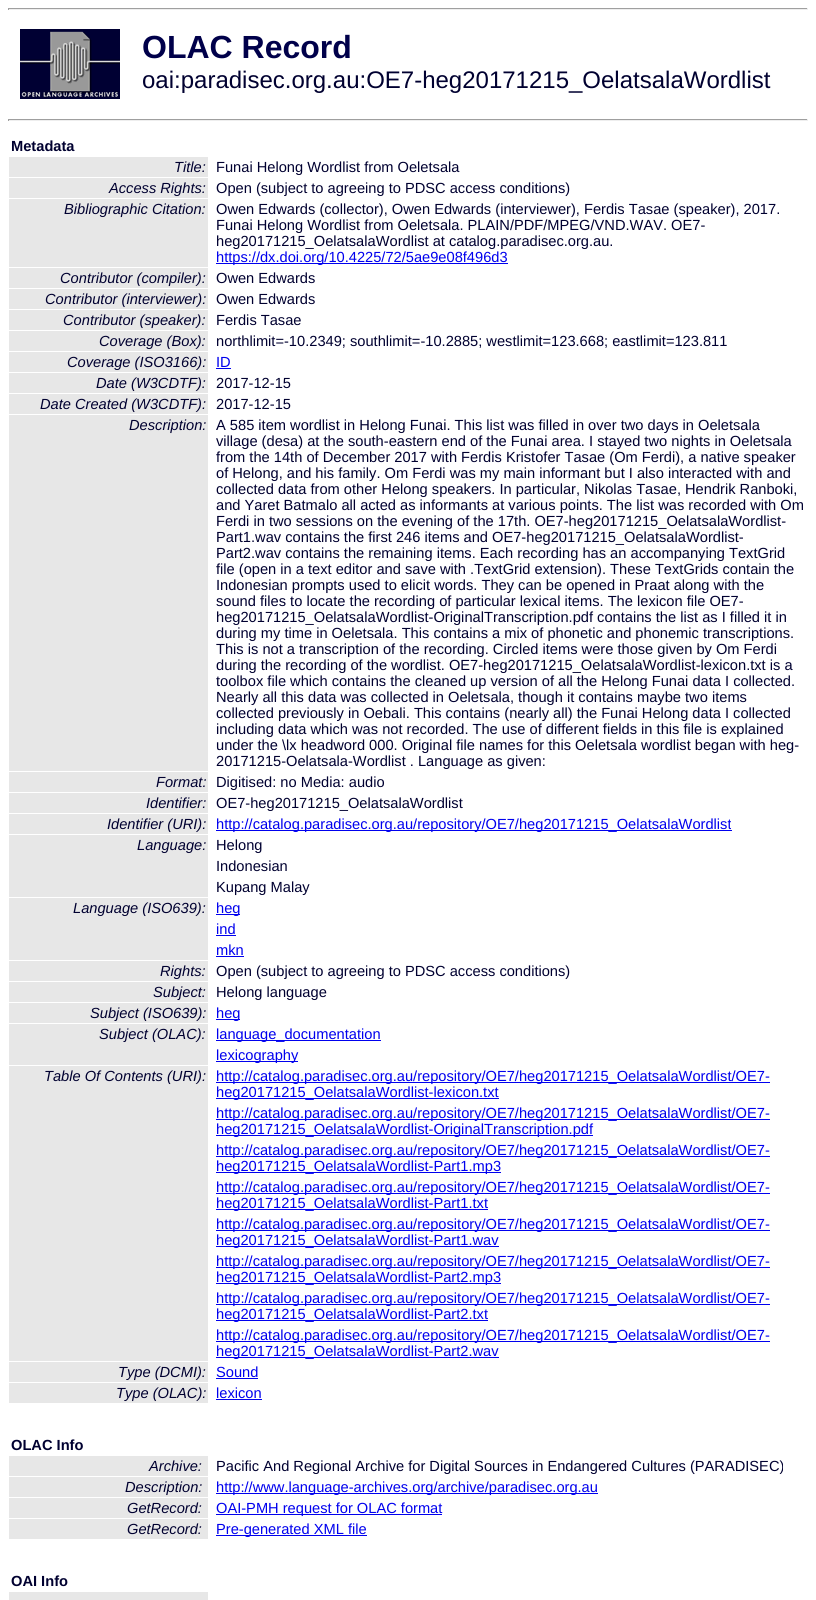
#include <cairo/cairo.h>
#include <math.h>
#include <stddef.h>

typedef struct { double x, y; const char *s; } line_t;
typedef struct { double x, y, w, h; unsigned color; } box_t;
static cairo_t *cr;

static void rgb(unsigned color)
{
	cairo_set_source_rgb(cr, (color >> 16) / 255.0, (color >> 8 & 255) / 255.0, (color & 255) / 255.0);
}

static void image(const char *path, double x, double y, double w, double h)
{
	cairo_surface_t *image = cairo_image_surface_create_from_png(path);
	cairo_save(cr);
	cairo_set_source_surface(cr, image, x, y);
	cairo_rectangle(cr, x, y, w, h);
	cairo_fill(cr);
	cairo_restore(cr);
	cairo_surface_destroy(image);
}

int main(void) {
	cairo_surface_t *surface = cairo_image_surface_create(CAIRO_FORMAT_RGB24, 816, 1600);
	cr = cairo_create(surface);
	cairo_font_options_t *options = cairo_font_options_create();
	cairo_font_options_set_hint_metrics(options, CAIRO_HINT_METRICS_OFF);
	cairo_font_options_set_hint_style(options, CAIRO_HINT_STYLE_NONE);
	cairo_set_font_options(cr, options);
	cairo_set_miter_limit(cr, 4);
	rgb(0xffffff);
	cairo_paint(cr);
	{
		static const box_t items[] = {
			{8, 8, 800, 1, 0x9f9f9f},
			{807, 8, 1, 2, 0xeeeeee},
			{8, 9, 800, 1, 0xeeeeee},
			{8, 8, 1, 2, 0x9f9f9f},
		};
		for (size_t i = 0; i < sizeof items / sizeof *items; i++) {
			rgb(items[i].color);
			cairo_rectangle(cr, items[i].x, items[i].y, items[i].w, items[i].h);
			cairo_fill(cr);
		}
	}
	image("img/1.png", 20, 29, 100, 70);
	{
		static const box_t items[] = {
			{8, 119, 800, 1, 0x9f9f9f},
			{807, 119, 1, 2, 0xeeeeee},
			{8, 120, 800, 1, 0xeeeeee},
			{8, 119, 1, 2, 0x9f9f9f},
			{9, 157, 199, 20, 0xe7e7e7},
			{9, 178, 199, 20, 0xe7e7e7},
			{9, 199, 199, 68, 0xe7e7e7},
			{216, 263, 292, 1, 0x0000ee},
			{9, 268, 199, 20, 0xe7e7e7},
			{9, 289, 199, 20, 0xe7e7e7},
			{9, 310, 199, 20, 0xe7e7e7},
			{9, 331, 199, 20, 0xe7e7e7},
			{9, 352, 199, 20, 0xe7e7e7},
			{216, 368, 15, 1, 0x0000ee},
			{9, 373, 199, 20, 0xe7e7e7},
			{9, 394, 199, 20, 0xe7e7e7},
			{9, 415, 199, 356, 0xe7e7e7},
			{9, 772, 199, 20, 0xe7e7e7},
			{9, 793, 199, 20, 0xe7e7e7},
			{9, 814, 199, 20, 0xe7e7e7},
			{216, 830, 516, 1, 0x0000ee},
			{9, 835, 199, 62, 0xe7e7e7},
			{9, 898, 199, 62, 0xe7e7e7},
			{216, 914, 24, 1, 0x0000ee},
			{216, 935, 20, 1, 0x0000ee},
			{216, 956, 28, 1, 0x0000ee},
			{9, 961, 199, 20, 0xe7e7e7},
			{9, 982, 199, 20, 0xe7e7e7},
			{9, 1003, 199, 20, 0xe7e7e7},
			{216, 1019, 24, 1, 0x0000ee},
			{9, 1024, 199, 41, 0xe7e7e7},
			{216, 1040, 165, 1, 0x0000ee},
			{216, 1061, 82, 1, 0x0000ee},
			{9, 1066, 199, 295, 0xe7e7e7},
			{216, 1082, 554, 1, 0x0000ee},
			{216, 1098, 283, 1, 0x0000ee},
			{216, 1119, 554, 1, 0x0000ee},
			{216, 1135, 377, 1, 0x0000ee},
			{216, 1156, 554, 1, 0x0000ee},
			{216, 1172, 285, 1, 0x0000ee},
			{216, 1193, 554, 1, 0x0000ee},
			{216, 1209, 272, 1, 0x0000ee},
			{216, 1230, 554, 1, 0x0000ee},
			{216, 1246, 283, 1, 0x0000ee},
			{216, 1267, 554, 1, 0x0000ee},
			{216, 1283, 285, 1, 0x0000ee},
			{216, 1304, 554, 1, 0x0000ee},
			{216, 1320, 272, 1, 0x0000ee},
			{216, 1341, 554, 1, 0x0000ee},
			{216, 1357, 283, 1, 0x0000ee},
			{9, 1362, 199, 20, 0xe7e7e7},
			{216, 1378, 42, 1, 0x0000ee},
			{9, 1383, 199, 20, 0xe7e7e7},
			{216, 1399, 46, 1, 0x0000ee},
			{9, 1456, 199, 20, 0xe7e7e7},
			{9, 1477, 199, 20, 0xe7e7e7},
			{216, 1493, 382, 1, 0x0000ee},
			{9, 1498, 199, 20, 0xe7e7e7},
			{216, 1514, 226, 1, 0x0000ee},
			{9, 1519, 199, 20, 0xe7e7e7},
			{216, 1535, 151, 1, 0x0000ee},
			{9, 1592, 199, 8, 0xe7e7e7},
		};
		for (size_t i = 0; i < sizeof items / sizeof *items; i++) {
			rgb(items[i].color);
			cairo_rectangle(cr, items[i].x, items[i].y, items[i].w, items[i].h);
			cairo_fill(cr);
		}
	}
	cairo_select_font_face(cr, "Liberation Sans", CAIRO_FONT_SLANT_NORMAL, CAIRO_FONT_WEIGHT_BOLD);
	cairo_set_font_size(cr, 32);
	rgb(0x00004a);
	cairo_move_to(cr, 142, 58);
	cairo_show_text(cr, "OLAC Record");
	cairo_select_font_face(cr, "Liberation Sans", CAIRO_FONT_SLANT_NORMAL, CAIRO_FONT_WEIGHT_NORMAL);
	cairo_set_font_size(cr, 24);
	rgb(0x000030);
	cairo_move_to(cr, 142, 88);
	cairo_show_text(cr, "oai:paradisec.org.au:OE7-heg20171215_OelatsalaWordlist");
	cairo_select_font_face(cr, "Liberation Sans", CAIRO_FONT_SLANT_NORMAL, CAIRO_FONT_WEIGHT_BOLD);
	cairo_set_font_size(cr, 14.65);
	cairo_move_to(cr, 11, 151);
	cairo_show_text(cr, "Metadata");
	cairo_select_font_face(cr, "Liberation Sans", CAIRO_FONT_SLANT_ITALIC, CAIRO_FONT_WEIGHT_NORMAL);
	cairo_move_to(cr, 174, 172);
	cairo_show_text(cr, "Title:");
	cairo_select_font_face(cr, "Liberation Sans", CAIRO_FONT_SLANT_NORMAL, CAIRO_FONT_WEIGHT_NORMAL);
	cairo_move_to(cr, 216, 172);
	cairo_show_text(cr, "Funai Helong Wordlist from Oeletsala");
	cairo_select_font_face(cr, "Liberation Sans", CAIRO_FONT_SLANT_ITALIC, CAIRO_FONT_WEIGHT_NORMAL);
	cairo_move_to(cr, 109, 193);
	cairo_show_text(cr, "Access Rights:");
	cairo_select_font_face(cr, "Liberation Sans", CAIRO_FONT_SLANT_NORMAL, CAIRO_FONT_WEIGHT_NORMAL);
	cairo_move_to(cr, 216, 193);
	cairo_show_text(cr, "Open (subject to agreeing to PDSC access conditions)");
	cairo_select_font_face(cr, "Liberation Sans", CAIRO_FONT_SLANT_ITALIC, CAIRO_FONT_WEIGHT_NORMAL);
	cairo_move_to(cr, 64, 214);
	cairo_show_text(cr, "Bibliographic Citation:");
	cairo_select_font_face(cr, "Liberation Sans", CAIRO_FONT_SLANT_NORMAL, CAIRO_FONT_WEIGHT_NORMAL);
	{
		static const line_t items[] = {
			{216, 214, "Owen Edwards (collector), Owen Edwards (interviewer), Ferdis Tasae (speaker), 2017."},
			{216, 230, "Funai Helong Wordlist from Oeletsala. PLAIN/PDF/MPEG/VND.WAV. OE7-"},
			{216, 246, "heg20171215_OelatsalaWordlist at catalog.paradisec.org.au."},
		};
		for (size_t i = 0; i < sizeof items / sizeof *items; i++) {
			cairo_move_to(cr, items[i].x, items[i].y);
			cairo_show_text(cr, items[i].s);
		}
	}
	rgb(0x0000ee);
	cairo_move_to(cr, 216, 262);
	cairo_show_text(cr, "https://dx.doi.org/10.4225/72/5ae9e08f496d3");
	cairo_select_font_face(cr, "Liberation Sans", CAIRO_FONT_SLANT_ITALIC, CAIRO_FONT_WEIGHT_NORMAL);
	rgb(0x000030);
	cairo_move_to(cr, 60, 283);
	cairo_show_text(cr, "Contributor (compiler):");
	cairo_select_font_face(cr, "Liberation Sans", CAIRO_FONT_SLANT_NORMAL, CAIRO_FONT_WEIGHT_NORMAL);
	cairo_move_to(cr, 216, 283);
	cairo_show_text(cr, "Owen Edwards");
	cairo_select_font_face(cr, "Liberation Sans", CAIRO_FONT_SLANT_ITALIC, CAIRO_FONT_WEIGHT_NORMAL);
	cairo_move_to(cr, 45, 304);
	cairo_show_text(cr, "Contributor (interviewer):");
	cairo_select_font_face(cr, "Liberation Sans", CAIRO_FONT_SLANT_NORMAL, CAIRO_FONT_WEIGHT_NORMAL);
	cairo_move_to(cr, 216, 304);
	cairo_show_text(cr, "Owen Edwards");
	cairo_select_font_face(cr, "Liberation Sans", CAIRO_FONT_SLANT_ITALIC, CAIRO_FONT_WEIGHT_NORMAL);
	cairo_move_to(cr, 63, 325);
	cairo_show_text(cr, "Contributor (speaker):");
	cairo_select_font_face(cr, "Liberation Sans", CAIRO_FONT_SLANT_NORMAL, CAIRO_FONT_WEIGHT_NORMAL);
	cairo_move_to(cr, 216, 325);
	cairo_show_text(cr, "Ferdis Tasae");
	cairo_select_font_face(cr, "Liberation Sans", CAIRO_FONT_SLANT_ITALIC, CAIRO_FONT_WEIGHT_NORMAL);
	cairo_move_to(cr, 99, 346);
	cairo_show_text(cr, "Coverage (Box):");
	cairo_select_font_face(cr, "Liberation Sans", CAIRO_FONT_SLANT_NORMAL, CAIRO_FONT_WEIGHT_NORMAL);
	cairo_move_to(cr, 216, 346);
	cairo_show_text(cr, "northlimit=-10.2349; southlimit=-10.2885; westlimit=123.668; eastlimit=123.811");
	cairo_select_font_face(cr, "Liberation Sans", CAIRO_FONT_SLANT_ITALIC, CAIRO_FONT_WEIGHT_NORMAL);
	cairo_move_to(cr, 67, 367);
	cairo_show_text(cr, "Coverage (ISO3166):");
	cairo_select_font_face(cr, "Liberation Sans", CAIRO_FONT_SLANT_NORMAL, CAIRO_FONT_WEIGHT_NORMAL);
	rgb(0x0000ee);
	cairo_move_to(cr, 216, 367);
	cairo_show_text(cr, "ID");
	cairo_select_font_face(cr, "Liberation Sans", CAIRO_FONT_SLANT_ITALIC, CAIRO_FONT_WEIGHT_NORMAL);
	rgb(0x000030);
	cairo_move_to(cr, 96, 388);
	cairo_show_text(cr, "Date (W3CDTF):");
	cairo_select_font_face(cr, "Liberation Sans", CAIRO_FONT_SLANT_NORMAL, CAIRO_FONT_WEIGHT_NORMAL);
	cairo_move_to(cr, 216, 388);
	cairo_show_text(cr, "2017-12-15");
	cairo_select_font_face(cr, "Liberation Sans", CAIRO_FONT_SLANT_ITALIC, CAIRO_FONT_WEIGHT_NORMAL);
	cairo_move_to(cr, 40, 409);
	cairo_show_text(cr, "Date Created (W3CDTF):");
	cairo_select_font_face(cr, "Liberation Sans", CAIRO_FONT_SLANT_NORMAL, CAIRO_FONT_WEIGHT_NORMAL);
	cairo_move_to(cr, 216, 409);
	cairo_show_text(cr, "2017-12-15");
	cairo_select_font_face(cr, "Liberation Sans", CAIRO_FONT_SLANT_ITALIC, CAIRO_FONT_WEIGHT_NORMAL);
	cairo_move_to(cr, 129, 430);
	cairo_show_text(cr, "Description:");
	cairo_select_font_face(cr, "Liberation Sans", CAIRO_FONT_SLANT_NORMAL, CAIRO_FONT_WEIGHT_NORMAL);
	{
		static const line_t items[] = {
			{216, 430, "A 585 item wordlist in Helong Funai. This list was filled in over two days in Oeletsala"},
			{216, 446, "village (desa) at the south-eastern end of the Funai area. I stayed two nights in Oeletsala"},
			{216, 462, "from the 14th of December 2017 with Ferdis Kristofer Tasae (Om Ferdi), a native speaker"},
			{216, 478, "of Helong, and his family. Om Ferdi was my main informant but I also interacted with and"},
			{216, 494, "collected data from other Helong speakers. In particular, Nikolas Tasae, Hendrik Ranboki,"},
			{216, 510, "and Yaret Batmalo all acted as informants at various points. The list was recorded with Om"},
			{216, 526, "Ferdi in two sessions on the evening of the 17th. OE7-heg20171215_OelatsalaWordlist-"},
			{216, 542, "Part1.wav contains the first 246 items and OE7-heg20171215_OelatsalaWordlist-"},
			{216, 558, "Part2.wav contains the remaining items. Each recording has an accompanying TextGrid"},
			{216, 574, "file (open in a text editor and save with .TextGrid extension). These TextGrids contain the"},
			{216, 590, "Indonesian prompts used to elicit words. They can be opened in Praat along with the"},
			{216, 606, "sound files to locate the recording of particular lexical items. The lexicon file OE7-"},
			{216, 622, "heg20171215_OelatsalaWordlist-OriginalTranscription.pdf contains the list as I filled it in"},
			{216, 638, "during my time in Oeletsala. This contains a mix of phonetic and phonemic transcriptions."},
			{216, 654, "This is not a transcription of the recording. Circled items were those given by Om Ferdi"},
			{216, 670, "during the recording of the wordlist. OE7-heg20171215_OelatsalaWordlist-lexicon.txt is a"},
			{216, 686, "toolbox file which contains the cleaned up version of all the Helong Funai data I collected."},
			{216, 702, "Nearly all this data was collected in Oeletsala, though it contains maybe two items"},
			{216, 718, "collected previously in Oebali. This contains (nearly all) the Funai Helong data I collected"},
			{216, 734, "including data which was not recorded. The use of different fields in this file is explained"},
			{216, 750, "under the \\lx headword 000. Original file names for this Oeletsala wordlist began with heg-"},
			{216, 766, "20171215-Oelatsala-Wordlist . Language as given:"},
		};
		for (size_t i = 0; i < sizeof items / sizeof *items; i++) {
			cairo_move_to(cr, items[i].x, items[i].y);
			cairo_show_text(cr, items[i].s);
		}
	}
	cairo_select_font_face(cr, "Liberation Sans", CAIRO_FONT_SLANT_ITALIC, CAIRO_FONT_WEIGHT_NORMAL);
	cairo_move_to(cr, 156, 787);
	cairo_show_text(cr, "Format:");
	cairo_select_font_face(cr, "Liberation Sans", CAIRO_FONT_SLANT_NORMAL, CAIRO_FONT_WEIGHT_NORMAL);
	cairo_move_to(cr, 216, 787);
	cairo_show_text(cr, "Digitised: no Media: audio");
	cairo_select_font_face(cr, "Liberation Sans", CAIRO_FONT_SLANT_ITALIC, CAIRO_FONT_WEIGHT_NORMAL);
	cairo_move_to(cr, 146, 808);
	cairo_show_text(cr, "Identifier:");
	cairo_select_font_face(cr, "Liberation Sans", CAIRO_FONT_SLANT_NORMAL, CAIRO_FONT_WEIGHT_NORMAL);
	cairo_move_to(cr, 216, 808);
	cairo_show_text(cr, "OE7-heg20171215_OelatsalaWordlist");
	cairo_select_font_face(cr, "Liberation Sans", CAIRO_FONT_SLANT_ITALIC, CAIRO_FONT_WEIGHT_NORMAL);
	cairo_move_to(cr, 107, 829);
	cairo_show_text(cr, "Identifier (URI):");
	cairo_select_font_face(cr, "Liberation Sans", CAIRO_FONT_SLANT_NORMAL, CAIRO_FONT_WEIGHT_NORMAL);
	rgb(0x0000ee);
	cairo_move_to(cr, 216, 829);
	cairo_show_text(cr, "http://catalog.paradisec.org.au/repository/OE7/heg20171215_OelatsalaWordlist");
	cairo_select_font_face(cr, "Liberation Sans", CAIRO_FONT_SLANT_ITALIC, CAIRO_FONT_WEIGHT_NORMAL);
	rgb(0x000030);
	cairo_move_to(cr, 137, 850);
	cairo_show_text(cr, "Language:");
	cairo_select_font_face(cr, "Liberation Sans", CAIRO_FONT_SLANT_NORMAL, CAIRO_FONT_WEIGHT_NORMAL);
	{
		static const line_t items[] = {
			{216, 850, "Helong"},
			{216, 871, "Indonesian"},
			{216, 892, "Kupang Malay"},
		};
		for (size_t i = 0; i < sizeof items / sizeof *items; i++) {
			cairo_move_to(cr, items[i].x, items[i].y);
			cairo_show_text(cr, items[i].s);
		}
	}
	cairo_select_font_face(cr, "Liberation Sans", CAIRO_FONT_SLANT_ITALIC, CAIRO_FONT_WEIGHT_NORMAL);
	cairo_move_to(cr, 73, 913);
	cairo_show_text(cr, "Language (ISO639):");
	cairo_select_font_face(cr, "Liberation Sans", CAIRO_FONT_SLANT_NORMAL, CAIRO_FONT_WEIGHT_NORMAL);
	rgb(0x0000ee);
	{
		static const line_t items[] = {
			{216, 913, "heg"},
			{216, 934, "ind"},
			{216, 955, "mkn"},
		};
		for (size_t i = 0; i < sizeof items / sizeof *items; i++) {
			cairo_move_to(cr, items[i].x, items[i].y);
			cairo_show_text(cr, items[i].s);
		}
	}
	cairo_select_font_face(cr, "Liberation Sans", CAIRO_FONT_SLANT_ITALIC, CAIRO_FONT_WEIGHT_NORMAL);
	rgb(0x000030);
	cairo_move_to(cr, 160, 976);
	cairo_show_text(cr, "Rights:");
	cairo_select_font_face(cr, "Liberation Sans", CAIRO_FONT_SLANT_NORMAL, CAIRO_FONT_WEIGHT_NORMAL);
	cairo_move_to(cr, 216, 976);
	cairo_show_text(cr, "Open (subject to agreeing to PDSC access conditions)");
	cairo_select_font_face(cr, "Liberation Sans", CAIRO_FONT_SLANT_ITALIC, CAIRO_FONT_WEIGHT_NORMAL);
	cairo_move_to(cr, 153, 997);
	cairo_show_text(cr, "Subject:");
	cairo_select_font_face(cr, "Liberation Sans", CAIRO_FONT_SLANT_NORMAL, CAIRO_FONT_WEIGHT_NORMAL);
	cairo_move_to(cr, 216, 997);
	cairo_show_text(cr, "Helong language");
	cairo_select_font_face(cr, "Liberation Sans", CAIRO_FONT_SLANT_ITALIC, CAIRO_FONT_WEIGHT_NORMAL);
	cairo_move_to(cr, 90, 1018);
	cairo_show_text(cr, "Subject (ISO639):");
	cairo_select_font_face(cr, "Liberation Sans", CAIRO_FONT_SLANT_NORMAL, CAIRO_FONT_WEIGHT_NORMAL);
	rgb(0x0000ee);
	cairo_move_to(cr, 216, 1018);
	cairo_show_text(cr, "heg");
	cairo_select_font_face(cr, "Liberation Sans", CAIRO_FONT_SLANT_ITALIC, CAIRO_FONT_WEIGHT_NORMAL);
	rgb(0x000030);
	cairo_move_to(cr, 99, 1039);
	cairo_show_text(cr, "Subject (OLAC):");
	cairo_select_font_face(cr, "Liberation Sans", CAIRO_FONT_SLANT_NORMAL, CAIRO_FONT_WEIGHT_NORMAL);
	rgb(0x0000ee);
	cairo_move_to(cr, 216, 1039);
	cairo_show_text(cr, "language_documentation");
	cairo_move_to(cr, 216, 1060);
	cairo_show_text(cr, "lexicography");
	cairo_select_font_face(cr, "Liberation Sans", CAIRO_FONT_SLANT_ITALIC, CAIRO_FONT_WEIGHT_NORMAL);
	rgb(0x000030);
	cairo_move_to(cr, 44, 1081);
	cairo_show_text(cr, "Table Of Contents (URI):");
	cairo_select_font_face(cr, "Liberation Sans", CAIRO_FONT_SLANT_NORMAL, CAIRO_FONT_WEIGHT_NORMAL);
	rgb(0x0000ee);
	{
		static const line_t items[] = {
			{216, 1081, "http://catalog.paradisec.org.au/repository/OE7/heg20171215_OelatsalaWordlist/OE7-"},
			{216, 1097, "heg20171215_OelatsalaWordlist-lexicon.txt"},
			{216, 1118, "http://catalog.paradisec.org.au/repository/OE7/heg20171215_OelatsalaWordlist/OE7-"},
			{216, 1134, "heg20171215_OelatsalaWordlist-OriginalTranscription.pdf"},
			{216, 1155, "http://catalog.paradisec.org.au/repository/OE7/heg20171215_OelatsalaWordlist/OE7-"},
			{216, 1171, "heg20171215_OelatsalaWordlist-Part1.mp3"},
			{216, 1192, "http://catalog.paradisec.org.au/repository/OE7/heg20171215_OelatsalaWordlist/OE7-"},
			{216, 1208, "heg20171215_OelatsalaWordlist-Part1.txt"},
			{216, 1229, "http://catalog.paradisec.org.au/repository/OE7/heg20171215_OelatsalaWordlist/OE7-"},
			{216, 1245, "heg20171215_OelatsalaWordlist-Part1.wav"},
			{216, 1266, "http://catalog.paradisec.org.au/repository/OE7/heg20171215_OelatsalaWordlist/OE7-"},
			{216, 1282, "heg20171215_OelatsalaWordlist-Part2.mp3"},
			{216, 1303, "http://catalog.paradisec.org.au/repository/OE7/heg20171215_OelatsalaWordlist/OE7-"},
			{216, 1319, "heg20171215_OelatsalaWordlist-Part2.txt"},
			{216, 1340, "http://catalog.paradisec.org.au/repository/OE7/heg20171215_OelatsalaWordlist/OE7-"},
			{216, 1356, "heg20171215_OelatsalaWordlist-Part2.wav"},
		};
		for (size_t i = 0; i < sizeof items / sizeof *items; i++) {
			cairo_move_to(cr, items[i].x, items[i].y);
			cairo_show_text(cr, items[i].s);
		}
	}
	cairo_select_font_face(cr, "Liberation Sans", CAIRO_FONT_SLANT_ITALIC, CAIRO_FONT_WEIGHT_NORMAL);
	rgb(0x000030);
	cairo_move_to(cr, 118, 1377);
	cairo_show_text(cr, "Type (DCMI):");
	cairo_select_font_face(cr, "Liberation Sans", CAIRO_FONT_SLANT_NORMAL, CAIRO_FONT_WEIGHT_NORMAL);
	rgb(0x0000ee);
	cairo_move_to(cr, 216, 1377);
	cairo_show_text(cr, "Sound");
	cairo_select_font_face(cr, "Liberation Sans", CAIRO_FONT_SLANT_ITALIC, CAIRO_FONT_WEIGHT_NORMAL);
	rgb(0x000030);
	cairo_move_to(cr, 116, 1398);
	cairo_show_text(cr, "Type (OLAC):");
	cairo_select_font_face(cr, "Liberation Sans", CAIRO_FONT_SLANT_NORMAL, CAIRO_FONT_WEIGHT_NORMAL);
	rgb(0x0000ee);
	cairo_move_to(cr, 216, 1398);
	cairo_show_text(cr, "lexicon");
	cairo_select_font_face(cr, "Liberation Sans", CAIRO_FONT_SLANT_NORMAL, CAIRO_FONT_WEIGHT_BOLD);
	rgb(0x000030);
	cairo_move_to(cr, 11, 1450);
	cairo_show_text(cr, "OLAC Info");
	cairo_select_font_face(cr, "Liberation Sans", CAIRO_FONT_SLANT_ITALIC, CAIRO_FONT_WEIGHT_NORMAL);
	cairo_move_to(cr, 149, 1471);
	cairo_show_text(cr, "Archive:");
	cairo_select_font_face(cr, "Liberation Sans", CAIRO_FONT_SLANT_NORMAL, CAIRO_FONT_WEIGHT_NORMAL);
	cairo_move_to(cr, 216, 1471);
	cairo_show_text(cr, "Pacific And Regional Archive for Digital Sources in Endangered Cultures (PARADISEC)");
	cairo_select_font_face(cr, "Liberation Sans", CAIRO_FONT_SLANT_ITALIC, CAIRO_FONT_WEIGHT_NORMAL);
	cairo_move_to(cr, 125, 1492);
	cairo_show_text(cr, "Description:");
	cairo_select_font_face(cr, "Liberation Sans", CAIRO_FONT_SLANT_NORMAL, CAIRO_FONT_WEIGHT_NORMAL);
	rgb(0x0000ee);
	cairo_move_to(cr, 216, 1492);
	cairo_show_text(cr, "http://www.language-archives.org/archive/paradisec.org.au");
	cairo_select_font_face(cr, "Liberation Sans", CAIRO_FONT_SLANT_ITALIC, CAIRO_FONT_WEIGHT_NORMAL);
	rgb(0x000030);
	cairo_move_to(cr, 127, 1513);
	cairo_show_text(cr, "GetRecord:");
	cairo_select_font_face(cr, "Liberation Sans", CAIRO_FONT_SLANT_NORMAL, CAIRO_FONT_WEIGHT_NORMAL);
	rgb(0x0000ee);
	cairo_move_to(cr, 216, 1513);
	cairo_show_text(cr, "OAI-PMH request for OLAC format");
	cairo_select_font_face(cr, "Liberation Sans", CAIRO_FONT_SLANT_ITALIC, CAIRO_FONT_WEIGHT_NORMAL);
	rgb(0x000030);
	cairo_move_to(cr, 127, 1534);
	cairo_show_text(cr, "GetRecord:");
	cairo_select_font_face(cr, "Liberation Sans", CAIRO_FONT_SLANT_NORMAL, CAIRO_FONT_WEIGHT_NORMAL);
	rgb(0x0000ee);
	cairo_move_to(cr, 216, 1534);
	cairo_show_text(cr, "Pre-generated XML file");
	cairo_select_font_face(cr, "Liberation Sans", CAIRO_FONT_SLANT_NORMAL, CAIRO_FONT_WEIGHT_BOLD);
	rgb(0x000030);
	cairo_move_to(cr, 11, 1586);
	cairo_show_text(cr, "OAI Info");
	cairo_surface_write_to_png(surface, "page.png");
	cairo_font_options_destroy(options);
	cairo_destroy(cr);
	cairo_surface_destroy(surface);
	return 0;
}
